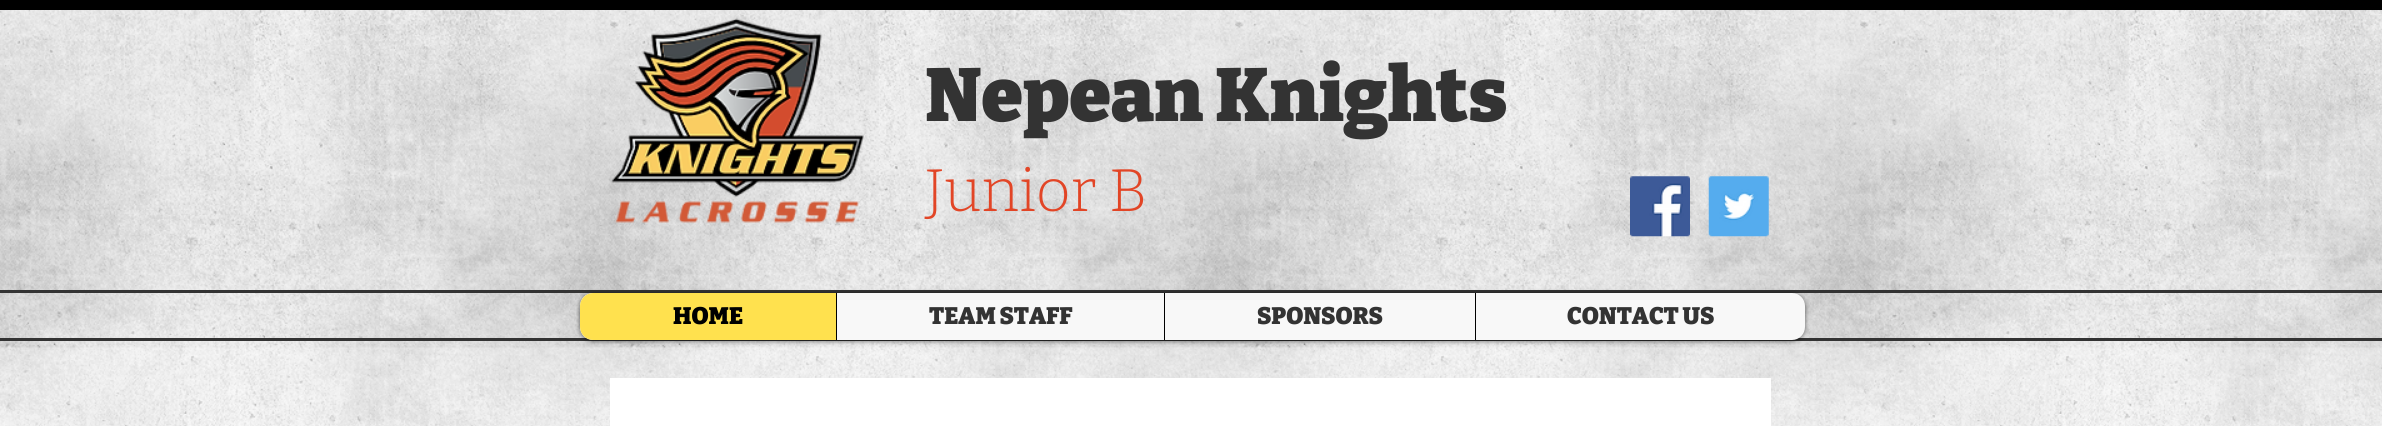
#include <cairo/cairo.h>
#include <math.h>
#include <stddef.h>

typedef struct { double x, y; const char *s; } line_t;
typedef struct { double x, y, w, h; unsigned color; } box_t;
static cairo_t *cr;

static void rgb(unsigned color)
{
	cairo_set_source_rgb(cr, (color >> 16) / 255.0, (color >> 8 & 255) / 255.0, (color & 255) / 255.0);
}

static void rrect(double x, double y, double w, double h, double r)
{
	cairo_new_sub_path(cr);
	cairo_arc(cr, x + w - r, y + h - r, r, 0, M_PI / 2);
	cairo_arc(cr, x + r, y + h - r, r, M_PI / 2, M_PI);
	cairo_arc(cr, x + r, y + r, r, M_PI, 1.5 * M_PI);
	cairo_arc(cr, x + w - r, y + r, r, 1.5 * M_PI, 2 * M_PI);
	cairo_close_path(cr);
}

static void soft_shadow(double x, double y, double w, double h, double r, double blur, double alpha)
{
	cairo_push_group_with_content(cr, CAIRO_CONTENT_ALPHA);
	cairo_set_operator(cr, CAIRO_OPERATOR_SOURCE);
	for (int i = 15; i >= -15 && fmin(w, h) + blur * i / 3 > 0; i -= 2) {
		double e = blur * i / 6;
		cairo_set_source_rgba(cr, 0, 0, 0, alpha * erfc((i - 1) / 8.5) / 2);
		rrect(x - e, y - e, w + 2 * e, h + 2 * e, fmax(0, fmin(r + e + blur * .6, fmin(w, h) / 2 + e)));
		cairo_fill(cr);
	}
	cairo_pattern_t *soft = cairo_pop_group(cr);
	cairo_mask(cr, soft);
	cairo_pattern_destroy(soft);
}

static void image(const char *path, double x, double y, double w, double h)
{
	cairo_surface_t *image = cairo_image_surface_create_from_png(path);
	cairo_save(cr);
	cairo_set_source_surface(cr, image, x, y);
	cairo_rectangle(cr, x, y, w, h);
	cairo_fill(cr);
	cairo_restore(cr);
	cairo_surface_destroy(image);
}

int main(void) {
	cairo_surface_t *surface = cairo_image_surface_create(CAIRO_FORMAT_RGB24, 2382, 426);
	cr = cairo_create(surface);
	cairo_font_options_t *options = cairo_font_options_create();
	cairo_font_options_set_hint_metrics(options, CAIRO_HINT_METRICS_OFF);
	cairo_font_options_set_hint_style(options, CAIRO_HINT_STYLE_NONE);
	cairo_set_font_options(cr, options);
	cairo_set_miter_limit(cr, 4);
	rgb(0xf8f8f8);
	cairo_paint(cr);
	image("img/1.png", 0, 10, 2382, 416);
	rgb(0x000000);
	cairo_rectangle(cr, 0, 0, 2382, 10);
	cairo_fill(cr);
	image("img/2.png", 611, 18, 253, 205);
	image("img/3.png", 1630, 176, 60, 61);
	image("img/4.png", 1708, 176, 61, 61);
	rgb(0x333333);
	cairo_rectangle(cr, 0, 290, 2382, 3);
	cairo_fill(cr);
	cairo_rectangle(cr, 0, 338, 2382, 3);
	cairo_fill(cr);
	rgb(0x000000);
	soft_shadow(580, 294, 1225, 47, 13, 2.5, 0.6);
	rgb(0xf8f8f8);
	rrect(580, 293, 1225, 47, 13);
	cairo_fill(cr);
	cairo_set_source_rgba(cr, 1, 0.882, 0.302, 0.99);
	cairo_new_path(cr);
	cairo_move_to(cr, 593, 293);
	cairo_line_to(cr, 836, 293);
	cairo_line_to(cr, 836, 340);
	cairo_line_to(cr, 593, 340);
	cairo_curve_to(cr, 586, 340, 580, 334, 580, 327);
	cairo_line_to(cr, 580, 306);
	cairo_curve_to(cr, 580, 299, 586, 293, 593, 293);
	cairo_close_path(cr);
	cairo_fill(cr);
	{
		static const box_t items[] = {
			{836, 293, 1, 47, 0x000000},
			{1164, 293, 1, 47, 0x000000},
			{1475, 293, 1, 47, 0x000000},
		};
		for (size_t i = 0; i < sizeof items / sizeof *items; i++) {
			rgb(items[i].color);
			cairo_rectangle(cr, items[i].x, items[i].y, items[i].w, items[i].h);
			cairo_fill(cr);
		}
	}
	image("img/5.png", 0, 347, 2382, 79);
	rgb(0xffffff);
	cairo_rectangle(cr, 610, 378, 1161, 48);
	cairo_fill(cr);
	cairo_select_font_face(cr, "Bitter Black", CAIRO_FONT_SLANT_NORMAL, CAIRO_FONT_WEIGHT_NORMAL);
	cairo_set_font_size(cr, 75);
	rgb(0x333333);
	cairo_move_to(cr, 925, 121);
	cairo_show_text(cr, "Nepean Knights");
	cairo_select_font_face(cr, "Bitter Thin", CAIRO_FONT_SLANT_NORMAL, CAIRO_FONT_WEIGHT_NORMAL);
	cairo_set_font_size(cr, 60);
	rgb(0xe24526);
	cairo_move_to(cr, 925, 211);
	cairo_show_text(cr, "Junior B");
	cairo_select_font_face(cr, "Bitter Black", CAIRO_FONT_SLANT_NORMAL, CAIRO_FONT_WEIGHT_NORMAL);
	cairo_set_font_size(cr, 23.75);
	rgb(0x000000);
	cairo_move_to(cr, 673, 324);
	cairo_show_text(cr, "HOME");
	rgb(0x333333);
	{
		static const line_t items[] = {
			{929, 324, "TEAM STAFF"},
			{1257, 324, "SPONSORS"},
			{1567, 324, "CONTACT US"},
		};
		for (size_t i = 0; i < sizeof items / sizeof *items; i++) {
			cairo_move_to(cr, items[i].x, items[i].y);
			cairo_show_text(cr, items[i].s);
		}
	}
	cairo_surface_write_to_png(surface, "page.png");
	cairo_font_options_destroy(options);
	cairo_destroy(cr);
	cairo_surface_destroy(surface);
	return 0;
}
